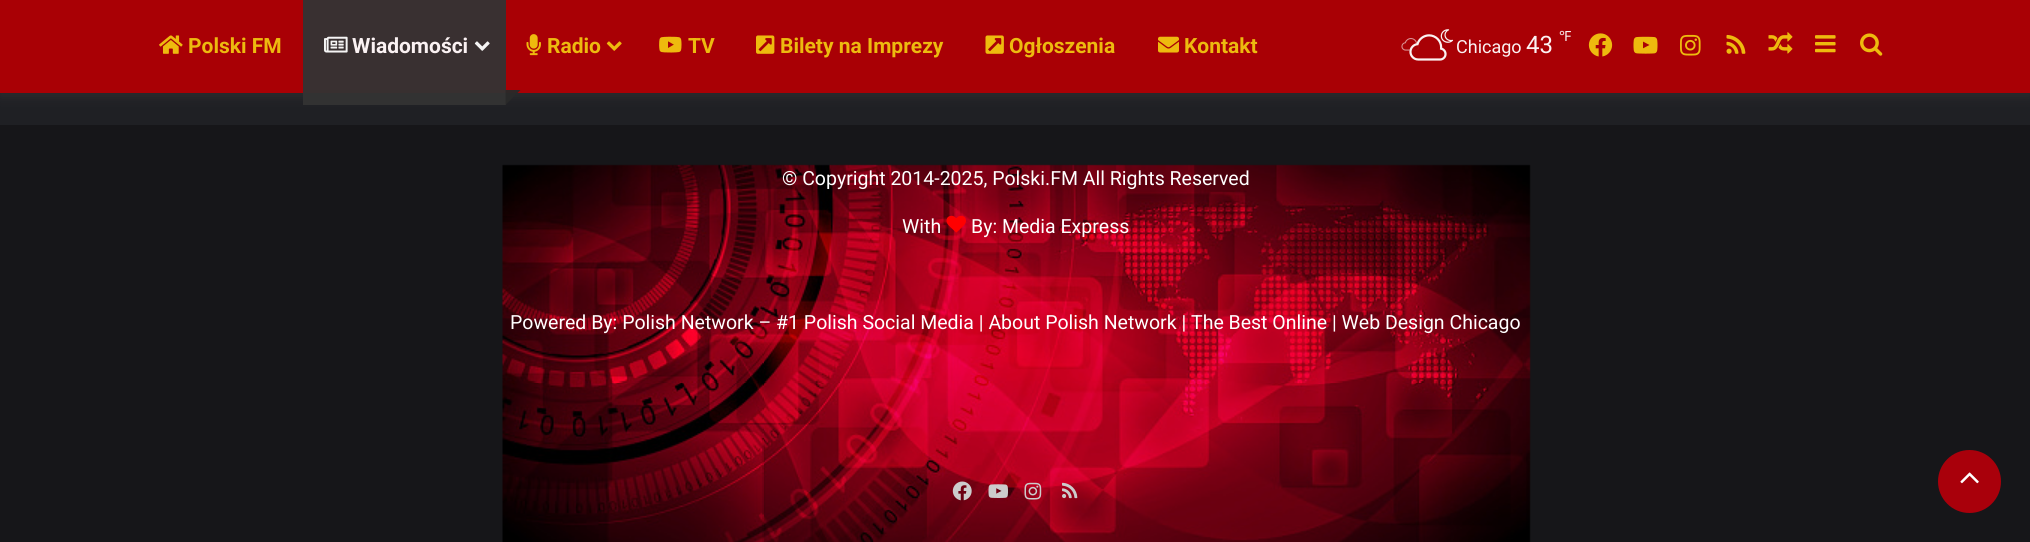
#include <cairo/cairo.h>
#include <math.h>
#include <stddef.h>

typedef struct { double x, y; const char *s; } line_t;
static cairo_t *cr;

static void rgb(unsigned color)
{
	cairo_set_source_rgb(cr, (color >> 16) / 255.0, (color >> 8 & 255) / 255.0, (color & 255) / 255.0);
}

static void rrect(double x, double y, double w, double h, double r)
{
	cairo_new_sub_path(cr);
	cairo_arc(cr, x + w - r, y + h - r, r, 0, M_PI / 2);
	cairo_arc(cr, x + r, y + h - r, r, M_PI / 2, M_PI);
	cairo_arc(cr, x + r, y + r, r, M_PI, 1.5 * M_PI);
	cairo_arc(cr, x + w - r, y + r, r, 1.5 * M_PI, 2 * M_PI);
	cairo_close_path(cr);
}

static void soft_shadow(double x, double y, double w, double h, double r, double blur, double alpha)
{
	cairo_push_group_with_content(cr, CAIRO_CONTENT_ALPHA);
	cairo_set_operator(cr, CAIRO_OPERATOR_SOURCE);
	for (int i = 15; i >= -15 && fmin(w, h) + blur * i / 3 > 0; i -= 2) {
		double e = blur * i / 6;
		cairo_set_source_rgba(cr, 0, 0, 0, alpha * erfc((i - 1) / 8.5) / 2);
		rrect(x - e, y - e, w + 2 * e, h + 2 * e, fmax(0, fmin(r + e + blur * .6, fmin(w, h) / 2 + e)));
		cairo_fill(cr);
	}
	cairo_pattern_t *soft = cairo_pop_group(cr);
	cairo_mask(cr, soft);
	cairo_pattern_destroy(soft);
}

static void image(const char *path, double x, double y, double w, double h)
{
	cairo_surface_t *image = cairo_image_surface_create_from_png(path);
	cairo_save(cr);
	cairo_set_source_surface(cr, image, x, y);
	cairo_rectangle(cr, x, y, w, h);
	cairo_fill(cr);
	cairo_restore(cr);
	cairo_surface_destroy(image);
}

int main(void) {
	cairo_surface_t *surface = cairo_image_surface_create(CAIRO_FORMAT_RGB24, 2030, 542);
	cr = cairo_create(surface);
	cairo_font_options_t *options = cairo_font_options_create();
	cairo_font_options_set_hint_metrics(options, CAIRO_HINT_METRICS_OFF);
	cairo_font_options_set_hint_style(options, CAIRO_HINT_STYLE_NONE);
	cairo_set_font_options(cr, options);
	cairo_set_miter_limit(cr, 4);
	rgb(0x1f2024);
	cairo_paint(cr);
	rgb(0x636363);
	soft_shadow(0, 3, 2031, 93, 0, 6, 0.2);
	rgb(0xa90005);
	cairo_rectangle(cr, 0, 0, 2030, 93);
	cairo_fill(cr);
	image("img/1.png", 159, 35, 24, 19);
	cairo_set_source_rgba(cr, 0.2, 0.2, 0.2, 0.95);
	cairo_rectangle(cr, 303, 90, 203, 15);
	cairo_fill(cr);
	rgb(0x393031);
	cairo_rectangle(cr, 303, 0, 203, 90);
	cairo_fill(cr);
	image("img/2.png", 324, 36, 24, 17);
	image("img/3.png", 474, 41, 16, 10);
	cairo_set_source_rgba(cr, 0.161, 0.161, 0.161, 0.95);
	cairo_new_path(cr);
	cairo_move_to(cr, 505.5, 90);
	cairo_line_to(cr, 520.5, 90);
	cairo_line_to(cr, 505.5, 105);
	cairo_close_path(cr);
	cairo_fill(cr);
	image("img/4.png", 526, 34, 15, 22);
	image("img/5.png", 606, 41, 16, 10);
	image("img/6.png", 659, 36, 23, 17);
	image("img/7.png", 756, 35, 19, 19);
	image("img/8.png", 985, 35, 19, 19);
	image("img/9.png", 1158, 36, 21, 17);
	image("img/10.png", 1440, 29, 14, 14);
	image("img/12.png", 1401, 38, 19, 13);
	image("img/13.png", 1409, 42, 11, 9);
	image("img/11.png", 1409, 34, 38, 27);
	image("img/14.png", 1588, 33, 25, 24);
	image("img/15.png", 1633, 36, 25, 18);
	image("img/16.png", 1680, 34, 21, 22);
	image("img/17.png", 1726, 34, 20, 20);
	image("img/18.png", 1768, 32, 25, 22);
	image("img/19.png", 1815, 35, 21, 18);
	image("img/20.png", 1860, 33, 23, 23);
	rgb(0x161619);
	cairo_rectangle(cr, 0, 125, 2030, 417);
	cairo_fill(cr);
	image("img/21.png", 502, 164, 1029, 378);
	image("img/22.png", 946, 215, 20, 18);
	image("img/23.png", 952, 481, 20, 20);
	image("img/24.png", 988, 484, 20, 14);
	image("img/25.png", 1024, 482, 18, 18);
	image("img/26.png", 1062, 482, 16, 17);
	rgb(0xa9000b);
	cairo_arc(cr, 1969.5, 481.5, 31.5, 0, 2 * M_PI);
	cairo_fill(cr);
	image("img/27.png", 1960, 472, 19, 12);
	cairo_select_font_face(cr, "Roboto", CAIRO_FONT_SLANT_NORMAL, CAIRO_FONT_WEIGHT_BOLD);
	cairo_set_font_size(cr, 21);
	rgb(0xedba0f);
	cairo_move_to(cr, 188, 53);
	cairo_show_text(cr, "Polski FM");
	rgb(0xfbf2f3);
	cairo_move_to(cr, 352, 53);
	cairo_show_text(cr, "Wiadomości");
	rgb(0xedba0f);
	{
		static const line_t items[] = {
			{547, 53, "Radio"},
			{688, 53, "TV"},
			{780, 53, "Bilety na Imprezy"},
			{1009, 53, "Ogłoszenia"},
			{1184, 53, "Kontakt"},
		};
		for (size_t i = 0; i < sizeof items / sizeof *items; i++) {
			cairo_move_to(cr, items[i].x, items[i].y);
			cairo_show_text(cr, items[i].s);
		}
	}
	cairo_select_font_face(cr, "Roboto", CAIRO_FONT_SLANT_NORMAL, CAIRO_FONT_WEIGHT_NORMAL);
	cairo_set_font_size(cr, 18);
	rgb(0xfbf2f3);
	cairo_move_to(cr, 1456, 53);
	cairo_show_text(cr, "Chicago");
	cairo_set_font_size(cr, 24);
	cairo_move_to(cr, 1526, 53);
	cairo_show_text(cr, "43");
	cairo_select_font_face(cr, "Noto Sans", CAIRO_FONT_SLANT_NORMAL, CAIRO_FONT_WEIGHT_NORMAL);
	cairo_set_font_size(cr, 14);
	cairo_move_to(cr, 1559, 41);
	cairo_show_text(cr, "℉");
	cairo_select_font_face(cr, "Roboto", CAIRO_FONT_SLANT_NORMAL, CAIRO_FONT_WEIGHT_NORMAL);
	cairo_set_font_size(cr, 19.5);
	rgb(0xffffff);
	{
		static const line_t items[] = {
			{782, 185, "© Copyright 2014-2025, Polski.FM All Rights Reserved"},
			{902, 233, "With"},
			{971, 233, "By: Media Express"},
			{510, 329, "Powered By: Polish Network – #1 Polish Social Media | About Polish Network | The Best Online | Web Design Chicago"},
		};
		for (size_t i = 0; i < sizeof items / sizeof *items; i++) {
			cairo_move_to(cr, items[i].x, items[i].y);
			cairo_show_text(cr, items[i].s);
		}
	}
	cairo_surface_write_to_png(surface, "page.png");
	cairo_font_options_destroy(options);
	cairo_destroy(cr);
	cairo_surface_destroy(surface);
	return 0;
}
